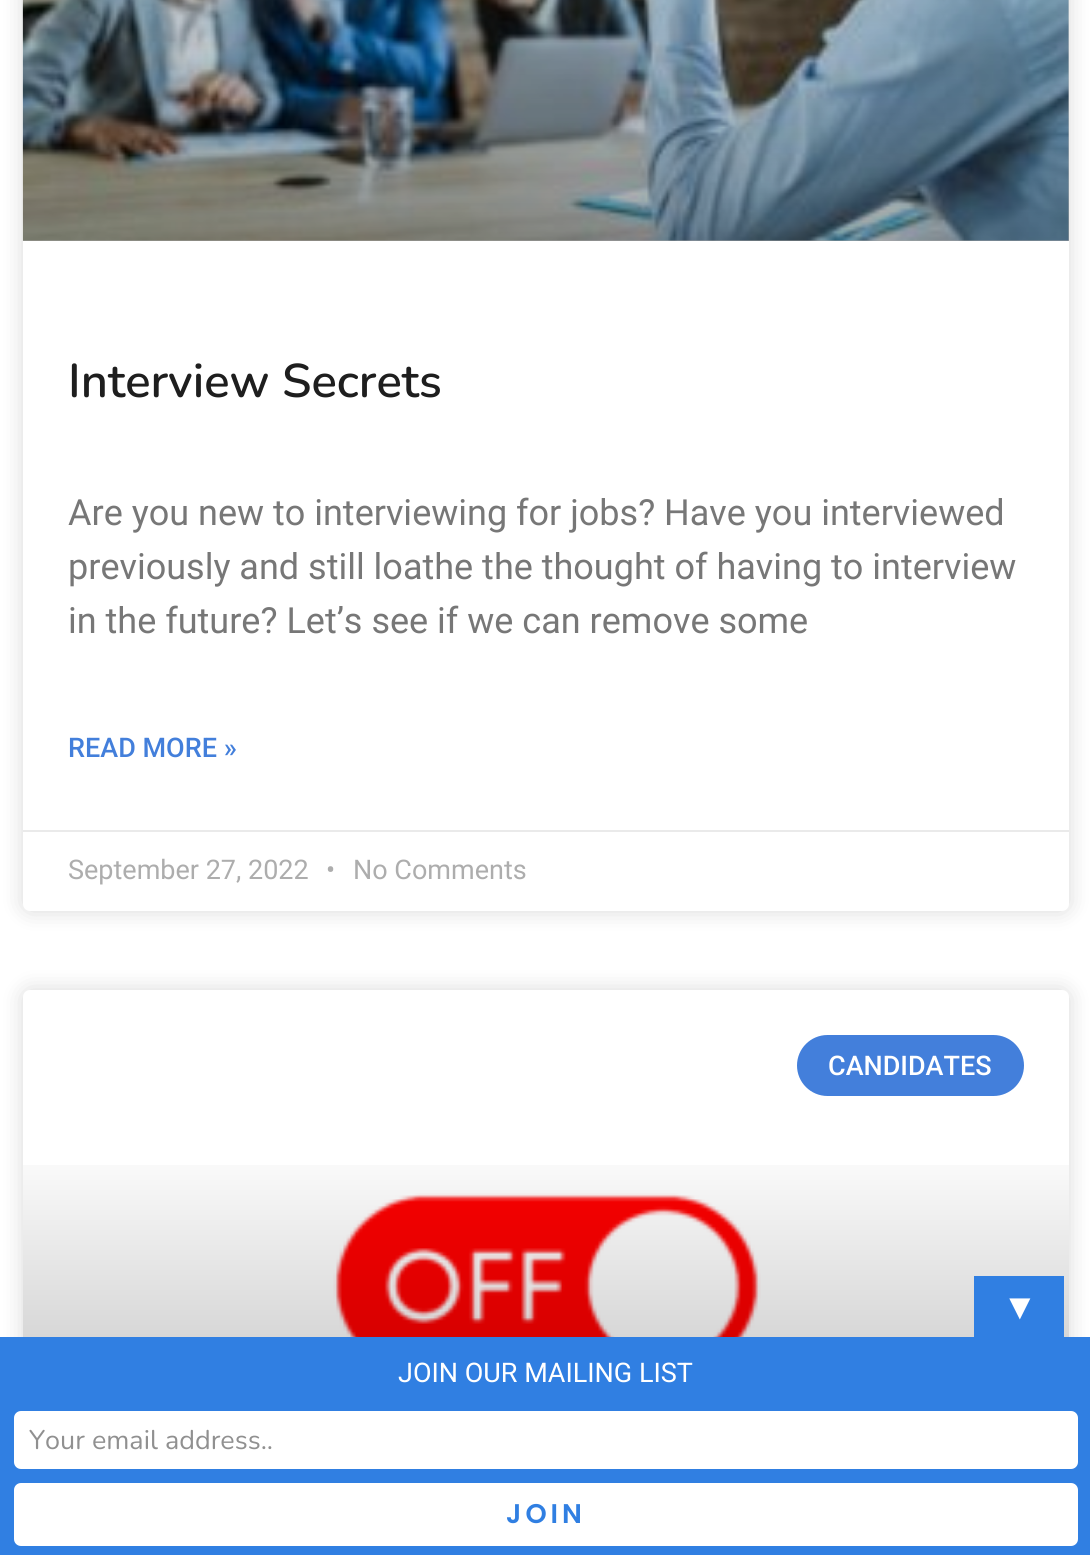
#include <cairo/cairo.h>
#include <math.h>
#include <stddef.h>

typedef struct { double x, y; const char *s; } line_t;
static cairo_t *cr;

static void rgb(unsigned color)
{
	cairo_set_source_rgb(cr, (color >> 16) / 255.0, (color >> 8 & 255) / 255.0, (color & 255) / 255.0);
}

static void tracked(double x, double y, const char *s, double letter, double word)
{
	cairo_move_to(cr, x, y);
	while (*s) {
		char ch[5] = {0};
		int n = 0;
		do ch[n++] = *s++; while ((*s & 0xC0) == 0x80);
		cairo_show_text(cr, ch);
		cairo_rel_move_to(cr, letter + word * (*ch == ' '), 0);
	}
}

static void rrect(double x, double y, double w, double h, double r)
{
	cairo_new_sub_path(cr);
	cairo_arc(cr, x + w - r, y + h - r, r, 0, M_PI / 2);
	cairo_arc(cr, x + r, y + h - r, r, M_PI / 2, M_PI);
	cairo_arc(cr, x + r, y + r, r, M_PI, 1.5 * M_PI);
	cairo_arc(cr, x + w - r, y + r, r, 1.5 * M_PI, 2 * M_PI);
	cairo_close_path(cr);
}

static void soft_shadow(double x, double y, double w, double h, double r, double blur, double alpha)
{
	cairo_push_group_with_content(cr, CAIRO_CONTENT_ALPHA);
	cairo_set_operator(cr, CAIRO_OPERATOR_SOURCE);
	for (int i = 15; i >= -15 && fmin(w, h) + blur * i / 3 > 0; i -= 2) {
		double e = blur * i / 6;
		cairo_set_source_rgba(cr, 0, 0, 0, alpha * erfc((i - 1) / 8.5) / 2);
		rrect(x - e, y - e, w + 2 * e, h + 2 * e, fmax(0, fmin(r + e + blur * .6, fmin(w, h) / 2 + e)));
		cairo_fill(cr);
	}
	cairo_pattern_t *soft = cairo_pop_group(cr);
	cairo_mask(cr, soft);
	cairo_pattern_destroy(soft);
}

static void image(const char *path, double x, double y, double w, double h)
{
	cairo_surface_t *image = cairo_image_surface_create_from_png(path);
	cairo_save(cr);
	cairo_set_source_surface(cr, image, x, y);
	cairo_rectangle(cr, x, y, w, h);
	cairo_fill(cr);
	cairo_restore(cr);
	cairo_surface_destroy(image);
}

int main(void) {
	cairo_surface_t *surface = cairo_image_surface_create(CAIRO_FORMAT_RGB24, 1090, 1555);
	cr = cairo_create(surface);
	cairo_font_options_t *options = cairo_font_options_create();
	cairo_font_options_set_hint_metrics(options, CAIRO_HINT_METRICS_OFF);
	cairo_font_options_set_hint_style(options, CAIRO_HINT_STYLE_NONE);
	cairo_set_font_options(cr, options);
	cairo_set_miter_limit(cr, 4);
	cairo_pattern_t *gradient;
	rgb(0xffffff);
	cairo_paint(cr);
	rgb(0x000000);
	soft_shadow(23, -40, 1046, 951, 7, 11, 0.15);
	rgb(0xffffff);
	rrect(23, -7, 1046, 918, 7);
	cairo_fill(cr);
	image("img/1.png", 22, 0, 1047, 241);
	gradient = cairo_pattern_create_linear(546, 241, 546, -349);
	cairo_pattern_add_color_stop_rgba(gradient, 0, 0, 0, 0, 0.35);
	cairo_pattern_add_color_stop_rgba(gradient, 0.75, 0, 0, 0, 0);
	cairo_set_source(cr, gradient);
	cairo_pattern_destroy(gradient);
	cairo_rectangle(cr, 23, 0, 1046, 241);
	cairo_fill(cr);
	rgb(0xeaeaea);
	cairo_rectangle(cr, 23, 830, 1046, 2);
	cairo_fill(cr);
	rgb(0x000000);
	soft_shadow(23, 990, 1046, 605, 7, 11, 0.15);
	rgb(0xffffff);
	rrect(23, 990, 1046, 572, 7);
	cairo_fill(cr);
	rgb(0x437fdb);
	rrect(797, 1035, 227, 61, 30.5);
	cairo_fill(cr);
	image("img/2.png", 333, 1193, 428, 144);
	gradient = cairo_pattern_create_linear(546, 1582, 546, 990);
	cairo_pattern_add_color_stop_rgba(gradient, 0, 0, 0, 0, 0.35);
	cairo_pattern_add_color_stop_rgba(gradient, 0.75, 0, 0, 0, 0);
	cairo_set_source(cr, gradient);
	cairo_pattern_destroy(gradient);
	cairo_rectangle(cr, 23, 1165, 1046, 172);
	cairo_fill(cr);
	rgb(0x307fe2);
	cairo_rectangle(cr, 974, 1276, 90, 61);
	cairo_fill(cr);
	cairo_rectangle(cr, 0, 1337, 1090, 218);
	cairo_fill(cr);
	rgb(0xffffff);
	rrect(15, 1412, 1062, 56, 6);
	cairo_fill_preserve(cr);
	cairo_stroke(cr);
	rrect(15, 1484, 1062, 61, 6);
	cairo_fill_preserve(cr);
	cairo_stroke(cr);
	cairo_select_font_face(cr, "Nunito SemiBold", CAIRO_FONT_SLANT_NORMAL, CAIRO_FONT_WEIGHT_NORMAL);
	cairo_set_font_size(cr, 47.25);
	rgb(0x1e1e1e);
	cairo_move_to(cr, 68, 397);
	cairo_show_text(cr, "Interview Secrets");
	cairo_select_font_face(cr, "Roboto", CAIRO_FONT_SLANT_NORMAL, CAIRO_FONT_WEIGHT_NORMAL);
	cairo_set_font_size(cr, 36);
	rgb(0x777777);
	{
		static const line_t items[] = {
			{68, 525, "Are you new to interviewing for jobs? Have you interviewed"},
			{68, 579, "previously and still loathe the thought of having to interview"},
			{68, 633, "in the future? Let’s see if we can remove some"},
		};
		for (size_t i = 0; i < sizeof items / sizeof *items; i++) {
			cairo_move_to(cr, items[i].x, items[i].y);
			cairo_show_text(cr, items[i].s);
		}
	}
	cairo_select_font_face(cr, "Roboto Medium", CAIRO_FONT_SLANT_NORMAL, CAIRO_FONT_WEIGHT_NORMAL);
	cairo_set_font_size(cr, 27);
	rgb(0x437fdb);
	cairo_move_to(cr, 68, 757);
	cairo_show_text(cr, "READ MORE »");
	cairo_select_font_face(cr, "Roboto", CAIRO_FONT_SLANT_NORMAL, CAIRO_FONT_WEIGHT_NORMAL);
	rgb(0xadadad);
	{
		static const line_t items[] = {
			{68, 879, "September 27, 2022"},
			{326, 879, "•"},
			{353, 879, "No Comments"},
		};
		for (size_t i = 0; i < sizeof items / sizeof *items; i++) {
			cairo_move_to(cr, items[i].x, items[i].y);
			cairo_show_text(cr, items[i].s);
		}
	}
	cairo_select_font_face(cr, "Roboto Medium", CAIRO_FONT_SLANT_NORMAL, CAIRO_FONT_WEIGHT_NORMAL);
	rgb(0xffffff);
	cairo_move_to(cr, 828, 1075);
	cairo_show_text(cr, "CANDIDATES");
	cairo_select_font_face(cr, "Liberation Serif", CAIRO_FONT_SLANT_NORMAL, CAIRO_FONT_WEIGHT_NORMAL);
	cairo_set_font_size(cr, 36);
	cairo_move_to(cr, 1002, 1319);
	cairo_show_text(cr, "▼");
	cairo_select_font_face(cr, "Roboto", CAIRO_FONT_SLANT_NORMAL, CAIRO_FONT_WEIGHT_NORMAL);
	cairo_set_font_size(cr, 27);
	cairo_move_to(cr, 398, 1382);
	cairo_show_text(cr, "JOIN OUR MAILING LIST");
	cairo_select_font_face(cr, "Nunito", CAIRO_FONT_SLANT_NORMAL, CAIRO_FONT_WEIGHT_NORMAL);
	rgb(0x909090);
	cairo_move_to(cr, 29, 1449);
	cairo_show_text(cr, "Your email address..");
	cairo_select_font_face(cr, "Poppins SemiBold", CAIRO_FONT_SLANT_NORMAL, CAIRO_FONT_WEIGHT_NORMAL);
	rgb(0x307fe2);
	tracked(506, 1523, "JOIN", 4, 0);
	cairo_surface_write_to_png(surface, "page.png");
	cairo_font_options_destroy(options);
	cairo_destroy(cr);
	cairo_surface_destroy(surface);
	return 0;
}
